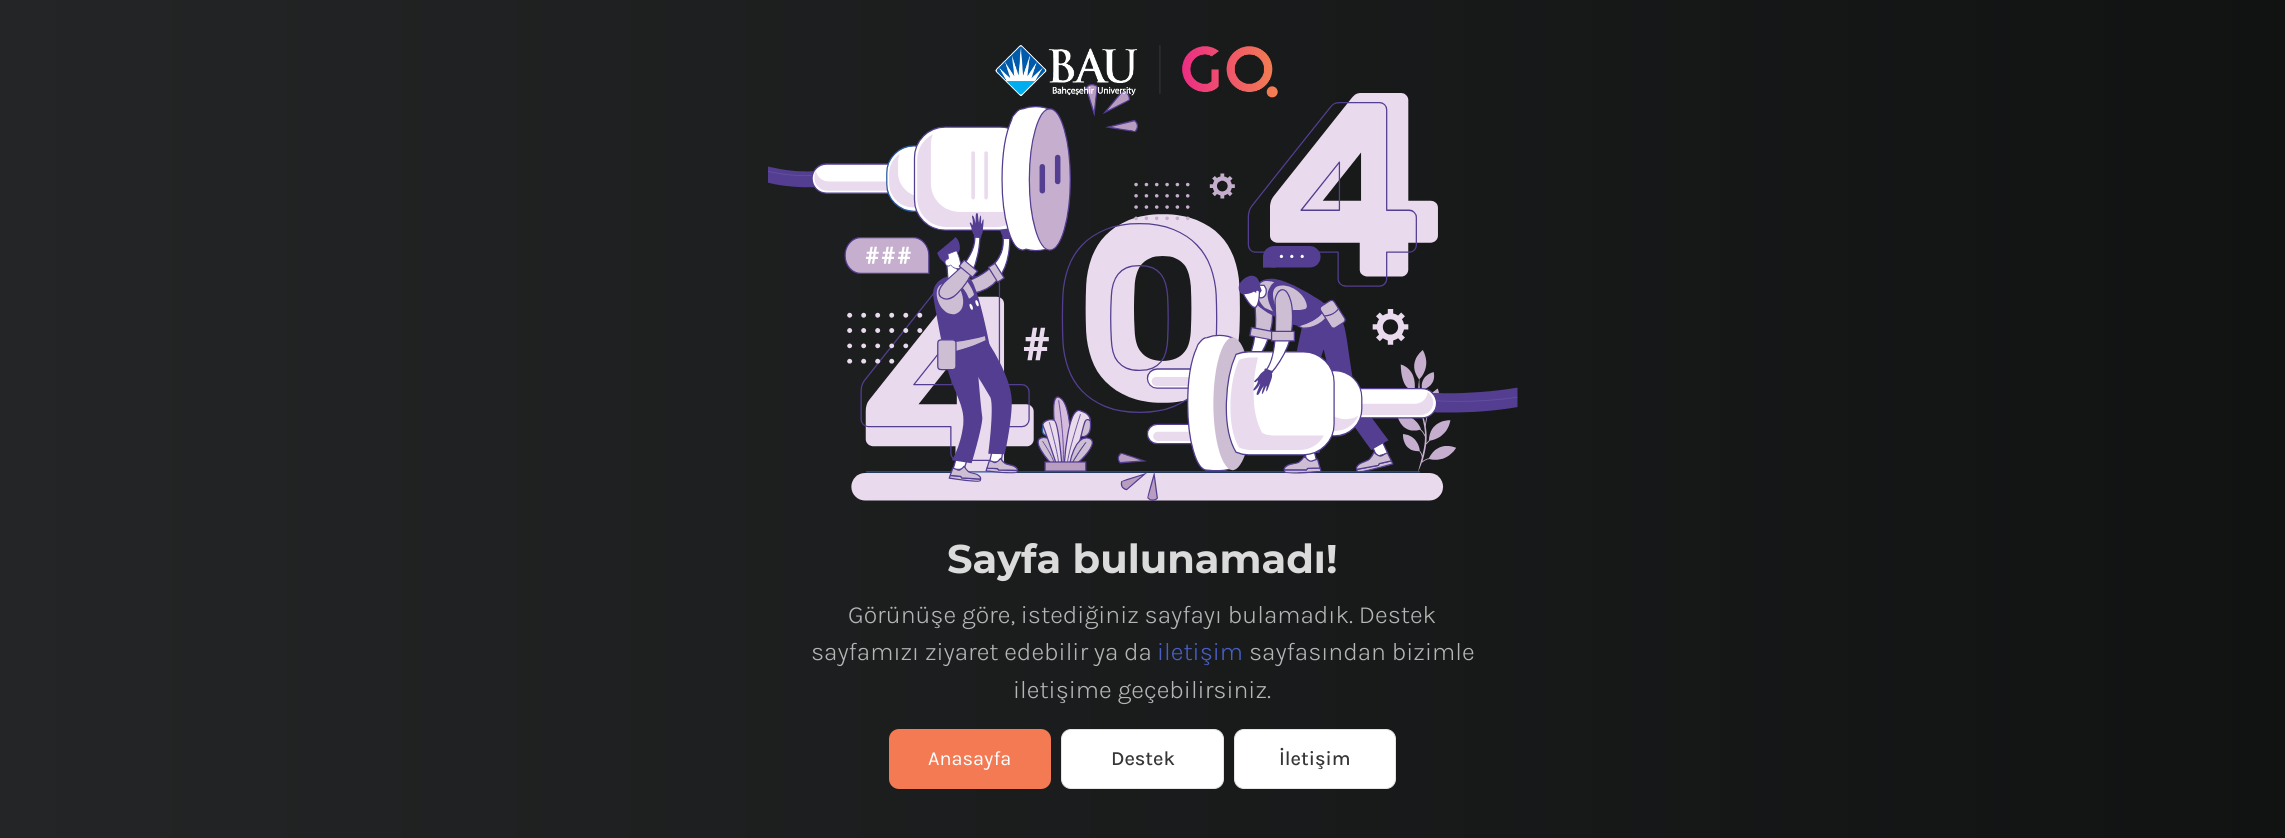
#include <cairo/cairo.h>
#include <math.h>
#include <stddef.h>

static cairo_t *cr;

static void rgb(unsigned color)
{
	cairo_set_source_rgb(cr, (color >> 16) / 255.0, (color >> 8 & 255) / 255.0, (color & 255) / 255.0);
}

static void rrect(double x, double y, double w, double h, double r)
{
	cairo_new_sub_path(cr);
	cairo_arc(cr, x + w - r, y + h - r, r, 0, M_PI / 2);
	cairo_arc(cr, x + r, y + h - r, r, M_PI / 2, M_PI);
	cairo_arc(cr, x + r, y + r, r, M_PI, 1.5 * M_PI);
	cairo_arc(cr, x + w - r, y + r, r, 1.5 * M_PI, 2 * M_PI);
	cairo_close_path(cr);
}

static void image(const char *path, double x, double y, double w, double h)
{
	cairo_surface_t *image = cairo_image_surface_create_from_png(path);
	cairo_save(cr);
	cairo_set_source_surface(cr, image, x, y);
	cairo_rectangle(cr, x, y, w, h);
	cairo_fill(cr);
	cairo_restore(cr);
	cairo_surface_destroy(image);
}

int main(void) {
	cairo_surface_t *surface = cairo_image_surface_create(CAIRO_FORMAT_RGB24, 2285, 838);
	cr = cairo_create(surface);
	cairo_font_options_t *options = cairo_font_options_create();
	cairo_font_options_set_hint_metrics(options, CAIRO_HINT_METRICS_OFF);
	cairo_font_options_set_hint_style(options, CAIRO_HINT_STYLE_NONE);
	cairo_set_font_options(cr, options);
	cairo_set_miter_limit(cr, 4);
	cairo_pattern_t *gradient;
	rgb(0xffffff);
	cairo_paint(cr);
	gradient = cairo_pattern_create_linear(0, 419, 2285, 419);
	cairo_pattern_add_color_stop_rgba(gradient, 0, 0.137, 0.145, 0.149, 1);
	cairo_pattern_add_color_stop_rgba(gradient, 1, 0.067, 0.071, 0.071, 1);
	cairo_set_source(cr, gradient);
	cairo_pattern_destroy(gradient);
	cairo_rectangle(cr, 0, 0, 2285, 838);
	cairo_fill(cr);
	image("img/2.png", 768, 84, 750, 417);
	image("img/1.png", 995, 45, 283, 53);
	rgb(0xf37a52);
	rrect(889, 729, 162, 60, 10);
	cairo_fill(cr);
	rgb(0xffffff);
	rrect(1061.5, 729.5, 162, 59, 9.5);
	cairo_fill_preserve(cr);
	rgb(0xe5e5e5);
	cairo_set_line_width(cr, 1);
	cairo_stroke(cr);
	rgb(0xffffff);
	rrect(1234.5, 729.5, 161, 59, 9.5);
	cairo_fill_preserve(cr);
	rgb(0xe5e5e5);
	cairo_stroke(cr);
	cairo_select_font_face(cr, "Montserrat", CAIRO_FONT_SLANT_NORMAL, CAIRO_FONT_WEIGHT_BOLD);
	cairo_set_font_size(cr, 40);
	rgb(0xdbdbdb);
	cairo_move_to(cr, 947, 573);
	cairo_show_text(cr, "Sayfa bulunamadı!");
	cairo_select_font_face(cr, "Karla Light", CAIRO_FONT_SLANT_NORMAL, CAIRO_FONT_WEIGHT_NORMAL);
	cairo_set_font_size(cr, 25);
	rgb(0xb5b5b5);
	cairo_move_to(cr, 848, 623);
	cairo_show_text(cr, "Görünüşe göre, istediğiniz sayfayı bulamadık. Destek");
	cairo_move_to(cr, 811, 660);
	cairo_show_text(cr, "sayfamızı ziyaret edebilir ya da");
	rgb(0x485fc7);
	cairo_move_to(cr, 1157, 660);
	cairo_show_text(cr, "iletişim");
	rgb(0xb5b5b5);
	cairo_move_to(cr, 1249, 660);
	cairo_show_text(cr, "sayfasından bizimle");
	cairo_move_to(cr, 1013, 698);
	cairo_show_text(cr, "iletişime geçebilirsiniz.");
	cairo_select_font_face(cr, "Karla", CAIRO_FONT_SLANT_NORMAL, CAIRO_FONT_WEIGHT_NORMAL);
	cairo_set_font_size(cr, 20);
	rgb(0xffffff);
	cairo_move_to(cr, 928, 765);
	cairo_show_text(cr, "Anasayfa");
	cairo_select_font_face(cr, "Karla Medium", CAIRO_FONT_SLANT_NORMAL, CAIRO_FONT_WEIGHT_NORMAL);
	rgb(0x363636);
	cairo_move_to(cr, 1111, 765);
	cairo_show_text(cr, "Destek");
	cairo_move_to(cr, 1279, 765);
	cairo_show_text(cr, "İletişim");
	cairo_surface_write_to_png(surface, "page.png");
	cairo_font_options_destroy(options);
	cairo_destroy(cr);
	cairo_surface_destroy(surface);
	return 0;
}
